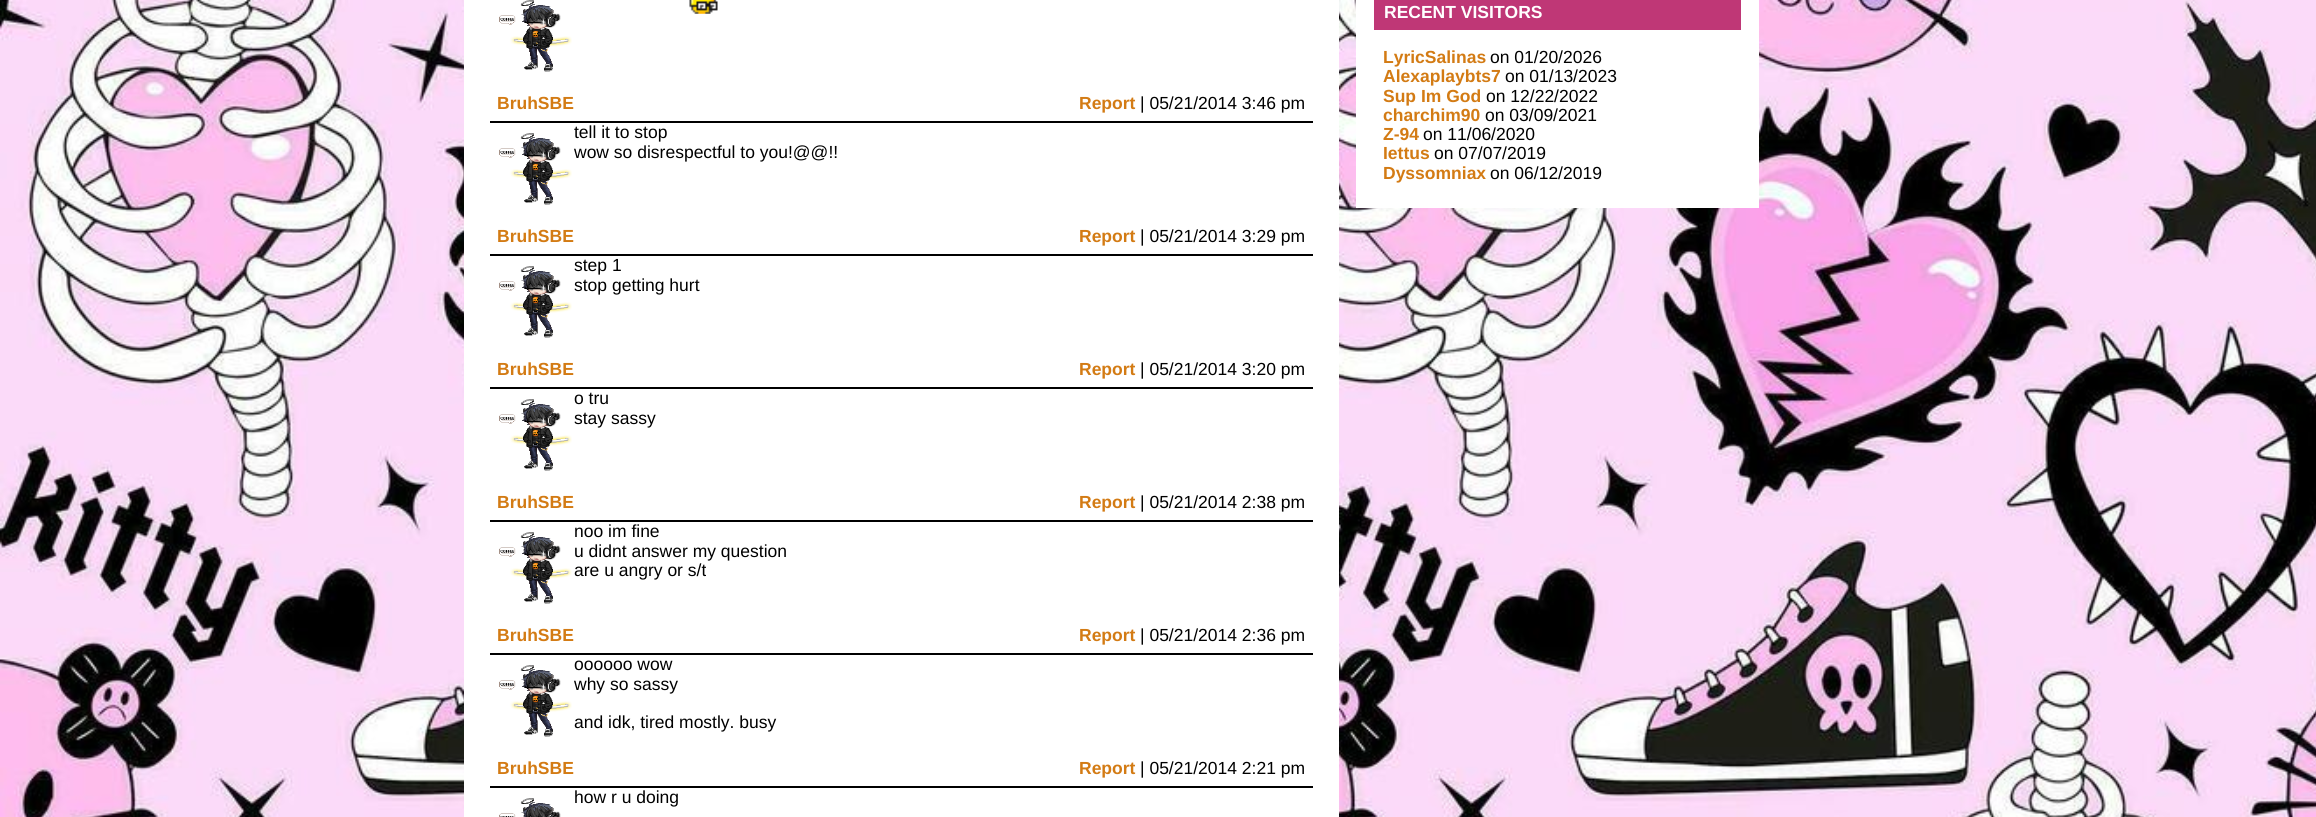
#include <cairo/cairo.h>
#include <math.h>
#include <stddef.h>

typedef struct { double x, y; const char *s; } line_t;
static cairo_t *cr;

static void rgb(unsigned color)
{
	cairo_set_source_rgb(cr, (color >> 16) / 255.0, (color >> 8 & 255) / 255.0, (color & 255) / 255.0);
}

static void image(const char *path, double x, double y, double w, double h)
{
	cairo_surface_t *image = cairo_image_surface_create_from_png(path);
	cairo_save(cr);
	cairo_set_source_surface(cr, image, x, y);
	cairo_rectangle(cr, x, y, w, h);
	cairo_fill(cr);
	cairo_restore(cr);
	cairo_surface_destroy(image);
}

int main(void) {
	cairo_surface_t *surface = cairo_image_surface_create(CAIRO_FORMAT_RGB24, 2316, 817);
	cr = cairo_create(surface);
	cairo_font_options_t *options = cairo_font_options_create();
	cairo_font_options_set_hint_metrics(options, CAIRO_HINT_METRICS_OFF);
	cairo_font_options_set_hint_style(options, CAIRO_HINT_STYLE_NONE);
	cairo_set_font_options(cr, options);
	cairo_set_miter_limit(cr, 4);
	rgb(0xffffff);
	cairo_paint(cr);
	image("img/1.png", 0, 0, 2316, 817);
	rgb(0xffffff);
	cairo_rectangle(cr, 464, 0, 875, 817);
	cairo_fill(cr);
	image("img/2.png", 499, 0, 73, 72);
	image("img/3.png", 689, 0, 29, 14);
	rgb(0x000000);
	cairo_rectangle(cr, 490, 121, 823, 2);
	cairo_fill(cr);
	image("img/2.png", 499, 133, 73, 72);
	cairo_rectangle(cr, 490, 254, 823, 2);
	cairo_fill(cr);
	image("img/2.png", 499, 266, 73, 72);
	cairo_rectangle(cr, 490, 387, 823, 2);
	cairo_fill(cr);
	image("img/2.png", 499, 399, 73, 72);
	cairo_rectangle(cr, 490, 520, 823, 2);
	cairo_fill(cr);
	image("img/2.png", 499, 532, 73, 72);
	cairo_rectangle(cr, 490, 653, 823, 2);
	cairo_fill(cr);
	image("img/2.png", 499, 665, 73, 72);
	cairo_rectangle(cr, 490, 786, 823, 2);
	cairo_fill(cr);
	image("img/4.png", 499, 798, 62, 19);
	rgb(0xffffff);
	cairo_rectangle(cr, 1356, 0, 403, 208);
	cairo_fill(cr);
	rgb(0xbf3776);
	cairo_rectangle(cr, 1374, 0, 367, 30);
	cairo_fill(cr);
	cairo_select_font_face(cr, "Liberation Sans", CAIRO_FONT_SLANT_NORMAL, CAIRO_FONT_WEIGHT_BOLD);
	cairo_set_font_size(cr, 17.5);
	rgb(0xd37b14);
	cairo_move_to(cr, 497, 109);
	cairo_show_text(cr, "BruhSBE");
	cairo_move_to(cr, 1079, 109);
	cairo_show_text(cr, "Report");
	cairo_select_font_face(cr, "Liberation Sans", CAIRO_FONT_SLANT_NORMAL, CAIRO_FONT_WEIGHT_NORMAL);
	rgb(0x000000);
	{
		static const line_t items[] = {
			{1140, 109, "| 05/21/2014 3:46 pm"},
			{574, 138, "tell it to stop"},
			{574, 158, "wow so disrespectful to you!@@!!"},
		};
		for (size_t i = 0; i < sizeof items / sizeof *items; i++) {
			cairo_move_to(cr, items[i].x, items[i].y);
			cairo_show_text(cr, items[i].s);
		}
	}
	cairo_select_font_face(cr, "Liberation Sans", CAIRO_FONT_SLANT_NORMAL, CAIRO_FONT_WEIGHT_BOLD);
	rgb(0xd37b14);
	cairo_move_to(cr, 497, 242);
	cairo_show_text(cr, "BruhSBE");
	cairo_move_to(cr, 1079, 242);
	cairo_show_text(cr, "Report");
	cairo_select_font_face(cr, "Liberation Sans", CAIRO_FONT_SLANT_NORMAL, CAIRO_FONT_WEIGHT_NORMAL);
	rgb(0x000000);
	{
		static const line_t items[] = {
			{1140, 242, "| 05/21/2014 3:29 pm"},
			{574, 271, "step 1"},
			{574, 291, "stop getting hurt"},
		};
		for (size_t i = 0; i < sizeof items / sizeof *items; i++) {
			cairo_move_to(cr, items[i].x, items[i].y);
			cairo_show_text(cr, items[i].s);
		}
	}
	cairo_select_font_face(cr, "Liberation Sans", CAIRO_FONT_SLANT_NORMAL, CAIRO_FONT_WEIGHT_BOLD);
	rgb(0xd37b14);
	cairo_move_to(cr, 497, 375);
	cairo_show_text(cr, "BruhSBE");
	cairo_move_to(cr, 1079, 375);
	cairo_show_text(cr, "Report");
	cairo_select_font_face(cr, "Liberation Sans", CAIRO_FONT_SLANT_NORMAL, CAIRO_FONT_WEIGHT_NORMAL);
	rgb(0x000000);
	{
		static const line_t items[] = {
			{1140, 375, "| 05/21/2014 3:20 pm"},
			{574, 404, "o tru"},
			{574, 424, "stay sassy"},
		};
		for (size_t i = 0; i < sizeof items / sizeof *items; i++) {
			cairo_move_to(cr, items[i].x, items[i].y);
			cairo_show_text(cr, items[i].s);
		}
	}
	cairo_select_font_face(cr, "Liberation Sans", CAIRO_FONT_SLANT_NORMAL, CAIRO_FONT_WEIGHT_BOLD);
	rgb(0xd37b14);
	cairo_move_to(cr, 497, 508);
	cairo_show_text(cr, "BruhSBE");
	cairo_move_to(cr, 1079, 508);
	cairo_show_text(cr, "Report");
	cairo_select_font_face(cr, "Liberation Sans", CAIRO_FONT_SLANT_NORMAL, CAIRO_FONT_WEIGHT_NORMAL);
	rgb(0x000000);
	{
		static const line_t items[] = {
			{1140, 508, "| 05/21/2014 2:38 pm"},
			{574, 537, "noo im fine"},
			{574, 557, "u didnt answer my question"},
			{574, 576, "are u angry or s/t"},
		};
		for (size_t i = 0; i < sizeof items / sizeof *items; i++) {
			cairo_move_to(cr, items[i].x, items[i].y);
			cairo_show_text(cr, items[i].s);
		}
	}
	cairo_select_font_face(cr, "Liberation Sans", CAIRO_FONT_SLANT_NORMAL, CAIRO_FONT_WEIGHT_BOLD);
	rgb(0xd37b14);
	cairo_move_to(cr, 497, 641);
	cairo_show_text(cr, "BruhSBE");
	cairo_move_to(cr, 1079, 641);
	cairo_show_text(cr, "Report");
	cairo_select_font_face(cr, "Liberation Sans", CAIRO_FONT_SLANT_NORMAL, CAIRO_FONT_WEIGHT_NORMAL);
	rgb(0x000000);
	{
		static const line_t items[] = {
			{1140, 641, "| 05/21/2014 2:36 pm"},
			{574, 670, "oooooo wow"},
			{574, 690, "why so sassy"},
			{574, 728, "and idk, tired mostly. busy"},
		};
		for (size_t i = 0; i < sizeof items / sizeof *items; i++) {
			cairo_move_to(cr, items[i].x, items[i].y);
			cairo_show_text(cr, items[i].s);
		}
	}
	cairo_select_font_face(cr, "Liberation Sans", CAIRO_FONT_SLANT_NORMAL, CAIRO_FONT_WEIGHT_BOLD);
	rgb(0xd37b14);
	cairo_move_to(cr, 497, 774);
	cairo_show_text(cr, "BruhSBE");
	cairo_move_to(cr, 1079, 774);
	cairo_show_text(cr, "Report");
	cairo_select_font_face(cr, "Liberation Sans", CAIRO_FONT_SLANT_NORMAL, CAIRO_FONT_WEIGHT_NORMAL);
	rgb(0x000000);
	cairo_move_to(cr, 1140, 774);
	cairo_show_text(cr, "| 05/21/2014 2:21 pm");
	cairo_move_to(cr, 574, 803);
	cairo_show_text(cr, "how r u doing");
	cairo_select_font_face(cr, "Liberation Sans", CAIRO_FONT_SLANT_NORMAL, CAIRO_FONT_WEIGHT_BOLD);
	rgb(0xffffff);
	cairo_move_to(cr, 1384, 18);
	cairo_show_text(cr, "RECENT VISITORS");
	rgb(0xd37b14);
	cairo_move_to(cr, 1383, 63);
	cairo_show_text(cr, "LyricSalinas");
	cairo_select_font_face(cr, "Liberation Sans", CAIRO_FONT_SLANT_NORMAL, CAIRO_FONT_WEIGHT_NORMAL);
	rgb(0x000000);
	cairo_move_to(cr, 1490, 63);
	cairo_show_text(cr, "on 01/20/2026");
	cairo_select_font_face(cr, "Liberation Sans", CAIRO_FONT_SLANT_NORMAL, CAIRO_FONT_WEIGHT_BOLD);
	rgb(0xd37b14);
	cairo_move_to(cr, 1383, 82);
	cairo_show_text(cr, "Alexaplaybts7");
	cairo_select_font_face(cr, "Liberation Sans", CAIRO_FONT_SLANT_NORMAL, CAIRO_FONT_WEIGHT_NORMAL);
	rgb(0x000000);
	cairo_move_to(cr, 1505, 82);
	cairo_show_text(cr, "on 01/13/2023");
	cairo_select_font_face(cr, "Liberation Sans", CAIRO_FONT_SLANT_NORMAL, CAIRO_FONT_WEIGHT_BOLD);
	rgb(0xd37b14);
	cairo_move_to(cr, 1383, 102);
	cairo_show_text(cr, "Sup Im God");
	cairo_select_font_face(cr, "Liberation Sans", CAIRO_FONT_SLANT_NORMAL, CAIRO_FONT_WEIGHT_NORMAL);
	rgb(0x000000);
	cairo_move_to(cr, 1486, 102);
	cairo_show_text(cr, "on 12/22/2022");
	cairo_select_font_face(cr, "Liberation Sans", CAIRO_FONT_SLANT_NORMAL, CAIRO_FONT_WEIGHT_BOLD);
	rgb(0xd37b14);
	cairo_move_to(cr, 1383, 121);
	cairo_show_text(cr, "charchim90");
	cairo_select_font_face(cr, "Liberation Sans", CAIRO_FONT_SLANT_NORMAL, CAIRO_FONT_WEIGHT_NORMAL);
	rgb(0x000000);
	cairo_move_to(cr, 1485, 121);
	cairo_show_text(cr, "on 03/09/2021");
	cairo_select_font_face(cr, "Liberation Sans", CAIRO_FONT_SLANT_NORMAL, CAIRO_FONT_WEIGHT_BOLD);
	rgb(0xd37b14);
	cairo_move_to(cr, 1383, 140);
	cairo_show_text(cr, "Z-94");
	cairo_select_font_face(cr, "Liberation Sans", CAIRO_FONT_SLANT_NORMAL, CAIRO_FONT_WEIGHT_NORMAL);
	rgb(0x000000);
	cairo_move_to(cr, 1423, 140);
	cairo_show_text(cr, "on 11/06/2020");
	cairo_select_font_face(cr, "Liberation Sans", CAIRO_FONT_SLANT_NORMAL, CAIRO_FONT_WEIGHT_BOLD);
	rgb(0xd37b14);
	cairo_move_to(cr, 1383, 159);
	cairo_show_text(cr, "Iettus");
	cairo_select_font_face(cr, "Liberation Sans", CAIRO_FONT_SLANT_NORMAL, CAIRO_FONT_WEIGHT_NORMAL);
	rgb(0x000000);
	cairo_move_to(cr, 1434, 159);
	cairo_show_text(cr, "on 07/07/2019");
	cairo_select_font_face(cr, "Liberation Sans", CAIRO_FONT_SLANT_NORMAL, CAIRO_FONT_WEIGHT_BOLD);
	rgb(0xd37b14);
	cairo_move_to(cr, 1383, 179);
	cairo_show_text(cr, "Dyssomniax");
	cairo_select_font_face(cr, "Liberation Sans", CAIRO_FONT_SLANT_NORMAL, CAIRO_FONT_WEIGHT_NORMAL);
	rgb(0x000000);
	cairo_move_to(cr, 1490, 179);
	cairo_show_text(cr, "on 06/12/2019");
	cairo_surface_write_to_png(surface, "page.png");
	cairo_font_options_destroy(options);
	cairo_destroy(cr);
	cairo_surface_destroy(surface);
	return 0;
}
